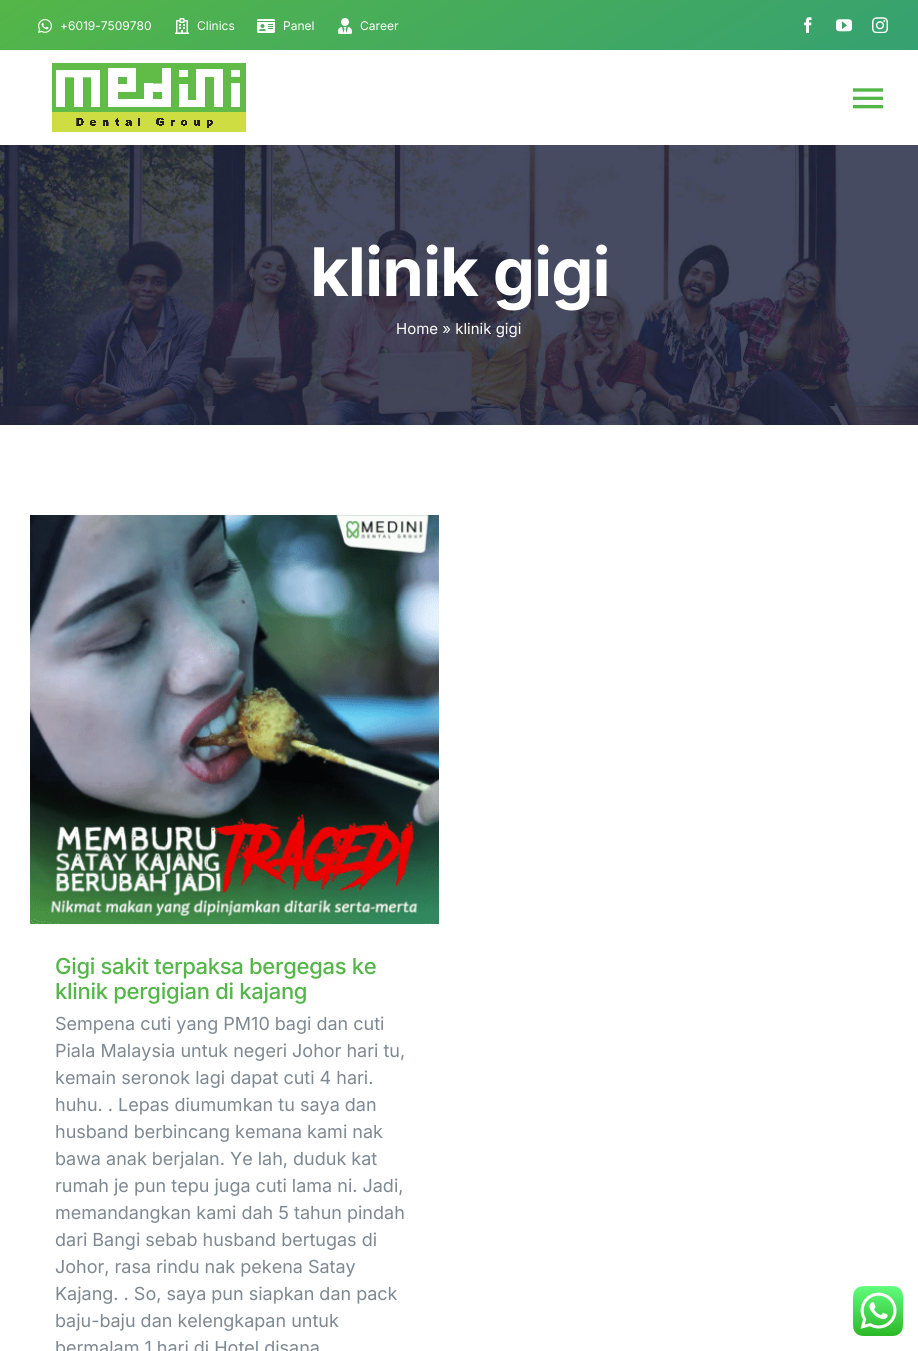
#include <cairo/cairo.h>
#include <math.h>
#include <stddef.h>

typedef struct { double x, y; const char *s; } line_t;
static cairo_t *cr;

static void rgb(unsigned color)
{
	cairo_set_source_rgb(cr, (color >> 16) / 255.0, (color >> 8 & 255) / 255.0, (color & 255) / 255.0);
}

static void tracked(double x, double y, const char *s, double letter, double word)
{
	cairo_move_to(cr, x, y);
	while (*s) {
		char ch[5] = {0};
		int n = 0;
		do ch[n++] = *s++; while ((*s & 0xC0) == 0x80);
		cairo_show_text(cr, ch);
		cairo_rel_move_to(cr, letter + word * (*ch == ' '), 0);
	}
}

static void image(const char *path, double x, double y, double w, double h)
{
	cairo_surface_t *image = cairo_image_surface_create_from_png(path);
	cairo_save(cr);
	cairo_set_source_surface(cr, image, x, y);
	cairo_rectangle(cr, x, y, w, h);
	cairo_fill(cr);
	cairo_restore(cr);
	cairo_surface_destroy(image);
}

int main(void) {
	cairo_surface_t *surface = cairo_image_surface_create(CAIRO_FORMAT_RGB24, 918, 1351);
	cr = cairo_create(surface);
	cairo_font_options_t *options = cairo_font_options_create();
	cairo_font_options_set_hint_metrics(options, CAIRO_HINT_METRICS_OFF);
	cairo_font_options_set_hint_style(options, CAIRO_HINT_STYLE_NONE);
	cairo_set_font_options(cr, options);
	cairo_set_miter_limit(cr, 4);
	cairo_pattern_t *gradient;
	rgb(0xffffff);
	cairo_paint(cr);
	gradient = cairo_pattern_create_linear(333, -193, 585, 243);
	cairo_pattern_add_color_stop_rgba(gradient, 0, 0.329, 0.714, 0.282, 1);
	cairo_pattern_add_color_stop_rgba(gradient, 1, 0.212, 0.631, 0.443, 1);
	cairo_set_source(cr, gradient);
	cairo_pattern_destroy(gradient);
	cairo_rectangle(cr, 0, 0, 918, 50);
	cairo_fill(cr);
	image("img/1.png", 38, 19, 14, 14);
	image("img/2.png", 175, 18, 14, 16);
	image("img/3.png", 257, 19, 18, 14);
	image("img/4.png", 338, 18, 14, 16);
	image("img/5.png", 804, 17, 8, 16);
	image("img/6.png", 836, 19, 16, 13);
	image("img/7.png", 872, 17, 16, 16);
	image("img/8.png", 52, 63, 194, 69);
	image("img/9.png", 853, 88, 30, 21);
	image("img/10.png", 0, 145, 918, 280);
	image("img/11.png", 30, 515, 409, 409);
	image("img/12.png", 853, 1286, 50, 50);
	cairo_select_font_face(cr, "Inter", CAIRO_FONT_SLANT_NORMAL, CAIRO_FONT_WEIGHT_NORMAL);
	cairo_set_font_size(cr, 12);
	rgb(0xffffff);
	{
		static const line_t items[] = {
			{60, 30, "+6019-7509780"},
			{197, 30, "Clinics"},
			{283, 30, "Panel"},
			{360, 30, "Career"},
		};
		for (size_t i = 0; i < sizeof items / sizeof *items; i++) {
			cairo_move_to(cr, items[i].x, items[i].y);
			cairo_show_text(cr, items[i].s);
		}
	}
	cairo_select_font_face(cr, "Inter", CAIRO_FONT_SLANT_NORMAL, CAIRO_FONT_WEIGHT_BOLD);
	cairo_set_font_size(cr, 67);
	tracked(310, 296, "klinik gigi", -1, 0);
	cairo_select_font_face(cr, "Inter", CAIRO_FONT_SLANT_NORMAL, CAIRO_FONT_WEIGHT_NORMAL);
	cairo_set_font_size(cr, 15);
	cairo_move_to(cr, 396, 334);
	cairo_show_text(cr, "Home » klinik gigi");
	cairo_select_font_face(cr, "Inter Medium", CAIRO_FONT_SLANT_NORMAL, CAIRO_FONT_WEIGHT_NORMAL);
	cairo_set_font_size(cr, 22);
	rgb(0x54b648);
	tracked(55, 974, "Gigi sakit terpaksa bergegas ke", -0.3, 0);
	tracked(55, 999, "klinik pergigian di kajang", -0.3, 0);
	cairo_select_font_face(cr, "Inter", CAIRO_FONT_SLANT_NORMAL, CAIRO_FONT_WEIGHT_NORMAL);
	cairo_set_font_size(cr, 18);
	rgb(0x7e8890);
	{
		static const line_t items[] = {
			{55, 1030, "Sempena cuti yang PM10 bagi dan cuti"},
			{55, 1057, "Piala Malaysia untuk negeri Johor hari tu,"},
			{55, 1084, "kemain seronok lagi dapat cuti 4 hari."},
			{55, 1111, "huhu. . Lepas diumumkan tu saya dan"},
			{55, 1138, "husband berbincang kemana kami nak"},
			{55, 1165, "bawa anak berjalan. Ye lah, duduk kat"},
			{55, 1192, "rumah je pun tepu juga cuti lama ni. Jadi,"},
			{55, 1219, "memandangkan kami dah 5 tahun pindah"},
			{55, 1246, "dari Bangi sebab husband bertugas di"},
			{55, 1273, "Johor, rasa rindu nak pekena Satay"},
			{55, 1300, "Kajang. . So, saya pun siapkan dan pack"},
			{55, 1327, "baju-baju dan kelengkapan untuk"},
			{55, 1354, "bermalam 1 hari di Hotel disana"},
		};
		for (size_t i = 0; i < sizeof items / sizeof *items; i++) {
			cairo_move_to(cr, items[i].x, items[i].y);
			cairo_show_text(cr, items[i].s);
		}
	}
	cairo_surface_write_to_png(surface, "page.png");
	cairo_font_options_destroy(options);
	cairo_destroy(cr);
	cairo_surface_destroy(surface);
	return 0;
}
